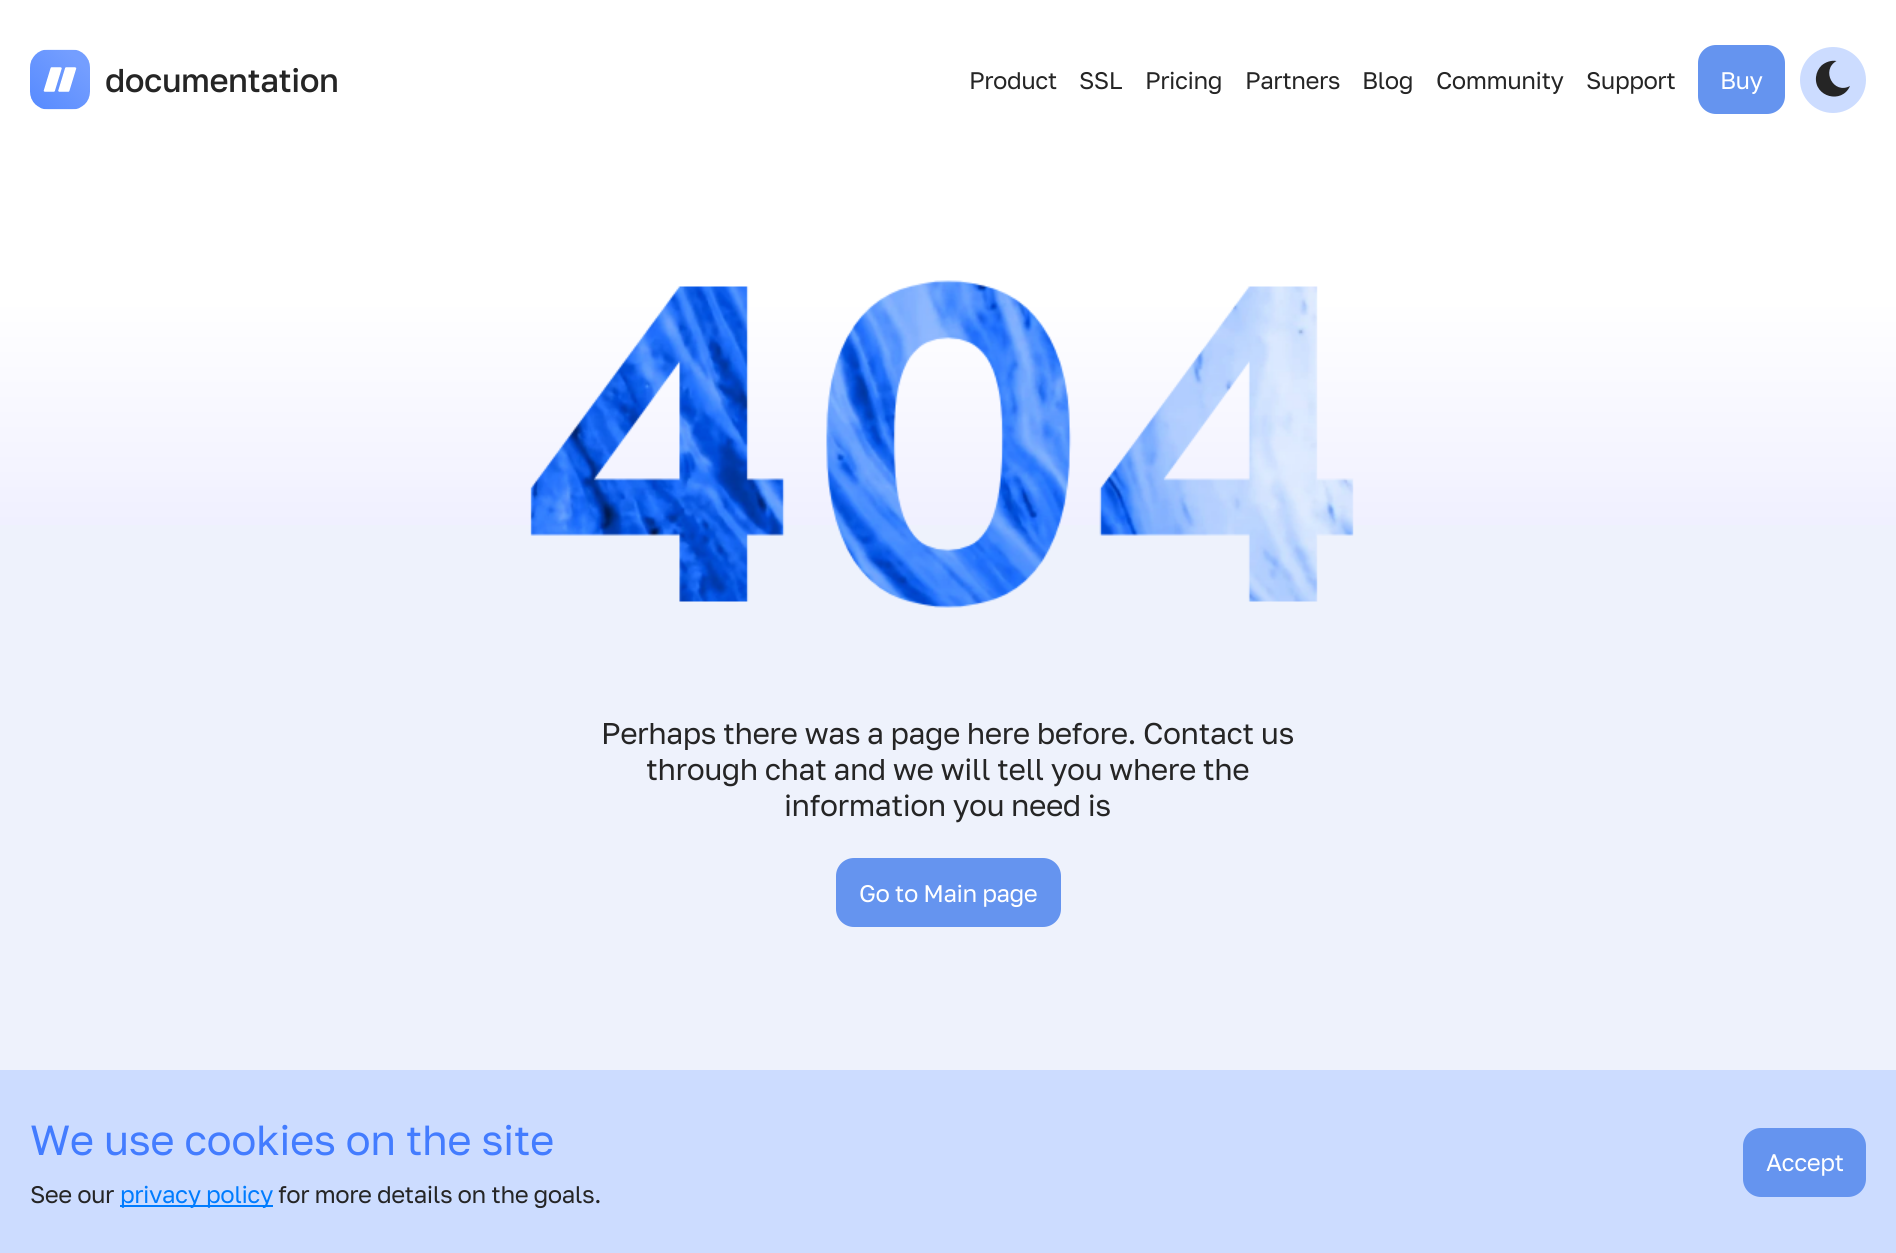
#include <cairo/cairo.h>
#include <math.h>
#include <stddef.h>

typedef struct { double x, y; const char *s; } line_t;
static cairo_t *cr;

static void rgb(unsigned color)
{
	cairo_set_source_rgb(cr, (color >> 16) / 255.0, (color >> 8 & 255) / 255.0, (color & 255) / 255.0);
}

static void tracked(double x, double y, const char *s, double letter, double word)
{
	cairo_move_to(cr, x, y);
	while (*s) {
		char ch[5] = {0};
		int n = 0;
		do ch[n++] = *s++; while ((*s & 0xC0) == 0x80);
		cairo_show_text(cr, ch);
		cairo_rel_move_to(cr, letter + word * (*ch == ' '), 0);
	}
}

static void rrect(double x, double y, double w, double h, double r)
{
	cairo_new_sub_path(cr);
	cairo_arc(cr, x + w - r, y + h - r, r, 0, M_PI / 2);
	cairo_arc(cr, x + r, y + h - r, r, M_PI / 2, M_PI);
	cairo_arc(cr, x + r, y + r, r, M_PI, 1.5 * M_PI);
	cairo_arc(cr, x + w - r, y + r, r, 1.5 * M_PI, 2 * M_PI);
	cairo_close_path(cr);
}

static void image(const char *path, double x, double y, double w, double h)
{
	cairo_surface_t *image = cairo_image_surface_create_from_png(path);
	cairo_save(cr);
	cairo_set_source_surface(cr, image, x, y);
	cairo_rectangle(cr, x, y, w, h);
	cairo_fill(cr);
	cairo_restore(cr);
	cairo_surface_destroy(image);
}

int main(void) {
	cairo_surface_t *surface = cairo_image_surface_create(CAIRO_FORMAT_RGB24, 1896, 1253);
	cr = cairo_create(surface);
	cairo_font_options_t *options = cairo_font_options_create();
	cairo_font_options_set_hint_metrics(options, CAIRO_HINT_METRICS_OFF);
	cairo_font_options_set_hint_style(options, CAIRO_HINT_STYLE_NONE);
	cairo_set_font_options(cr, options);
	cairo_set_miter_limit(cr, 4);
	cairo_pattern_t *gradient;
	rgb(0xeef2fc);
	cairo_paint(cr);
	gradient = cairo_pattern_create_linear(948, 0, 948, 525);
	cairo_pattern_add_color_stop_rgba(gradient, 0.57, 1, 1, 1, 1);
	cairo_pattern_add_color_stop_rgba(gradient, 1, 0.941, 0.941, 1, 1);
	cairo_set_source(cr, gradient);
	cairo_pattern_destroy(gradient);
	cairo_rectangle(cr, 0, 0, 1896, 525);
	cairo_fill(cr);
	image("img/1.png", 30, 49, 60, 61);
	rgb(0x6594ef);
	rrect(1698, 45, 87, 69, 18);
	cairo_fill(cr);
	rgb(0xccdcff);
	cairo_arc(cr, 1833, 80, 33, 0, 2 * M_PI);
	cairo_fill(cr);
	rgb(0x252525);
	cairo_new_path(cr);
	cairo_move_to(cr, 1850, 86);
	cairo_curve_to(cr, 1833.5, 95, 1820.5, 70, 1836.5, 61);
	cairo_curve_to(cr, 1831.5, 60, 1825.5, 62, 1821.5, 65.5);
	cairo_curve_to(cr, 1818.5, 68.5, 1816.5, 72.5, 1816, 77);
	cairo_curve_to(cr, 1814, 97, 1842, 104.5, 1850, 86);
	cairo_close_path(cr);
	cairo_fill(cr);
	image("img/2.png", 530, 280, 824, 328);
	rgb(0x6594ef);
	rrect(836, 858, 225, 69, 18);
	cairo_fill(cr);
	rgb(0xccdcff);
	cairo_rectangle(cr, 0, 1070, 1896, 183);
	cairo_fill(cr);
	rgb(0x007cff);
	cairo_rectangle(cr, 120, 1205, 153, 2);
	cairo_fill(cr);
	rgb(0x6594ef);
	rrect(1743, 1128, 123, 69, 18);
	cairo_fill(cr);
	cairo_select_font_face(cr, "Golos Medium", CAIRO_FONT_SLANT_NORMAL, CAIRO_FONT_WEIGHT_NORMAL);
	cairo_set_font_size(cr, 33);
	rgb(0x252525);
	tracked(105, 92, "documentation", -0.5, 0);
	cairo_select_font_face(cr, "Golos", CAIRO_FONT_SLANT_NORMAL, CAIRO_FONT_WEIGHT_NORMAL);
	cairo_set_font_size(cr, 24);
	{
		static const line_t items[] = {
			{969, 89, "Product"},
			{1079, 89, "SSL"},
			{1145, 89, "Pricing"},
			{1245, 89, "Partners"},
			{1362, 89, "Blog"},
			{1436, 89, "Community"},
			{1586, 89, "Support"},
		};
		for (size_t i = 0; i < sizeof items / sizeof *items; i++) {
			tracked(items[i].x, items[i].y, items[i].s, -0.5, 0);
		}
	}
	rgb(0xffffff);
	tracked(1720, 89, "Buy", -0.5, 0);
	cairo_set_font_size(cr, 30);
	rgb(0x252525);
	{
		static const line_t items[] = {
			{601, 744, "Perhaps there was a page here before. Contact us"},
			{646, 780, "through chat and we will tell you where the"},
			{784, 816, "information you need is"},
		};
		for (size_t i = 0; i < sizeof items / sizeof *items; i++) {
			tracked(items[i].x, items[i].y, items[i].s, -0.5, 0);
		}
	}
	cairo_set_font_size(cr, 24);
	rgb(0xffffff);
	tracked(859, 902, "Go to Main page", -0.5, 0);
	cairo_set_font_size(cr, 42);
	rgb(0x437cff);
	tracked(30, 1155, "We use cookies on the site", -0.5, 0);
	cairo_set_font_size(cr, 24);
	rgb(0x252525);
	tracked(30, 1203, "See our", -0.5, 0);
	rgb(0x007cff);
	tracked(120, 1203, "privacy policy", -0.5, 0);
	rgb(0x252525);
	tracked(278, 1203, "for more details on the goals.", -0.5, 0);
	rgb(0xffffff);
	tracked(1766, 1171, "Accept", -0.5, 0);
	cairo_surface_write_to_png(surface, "page.png");
	cairo_font_options_destroy(options);
	cairo_destroy(cr);
	cairo_surface_destroy(surface);
	return 0;
}
